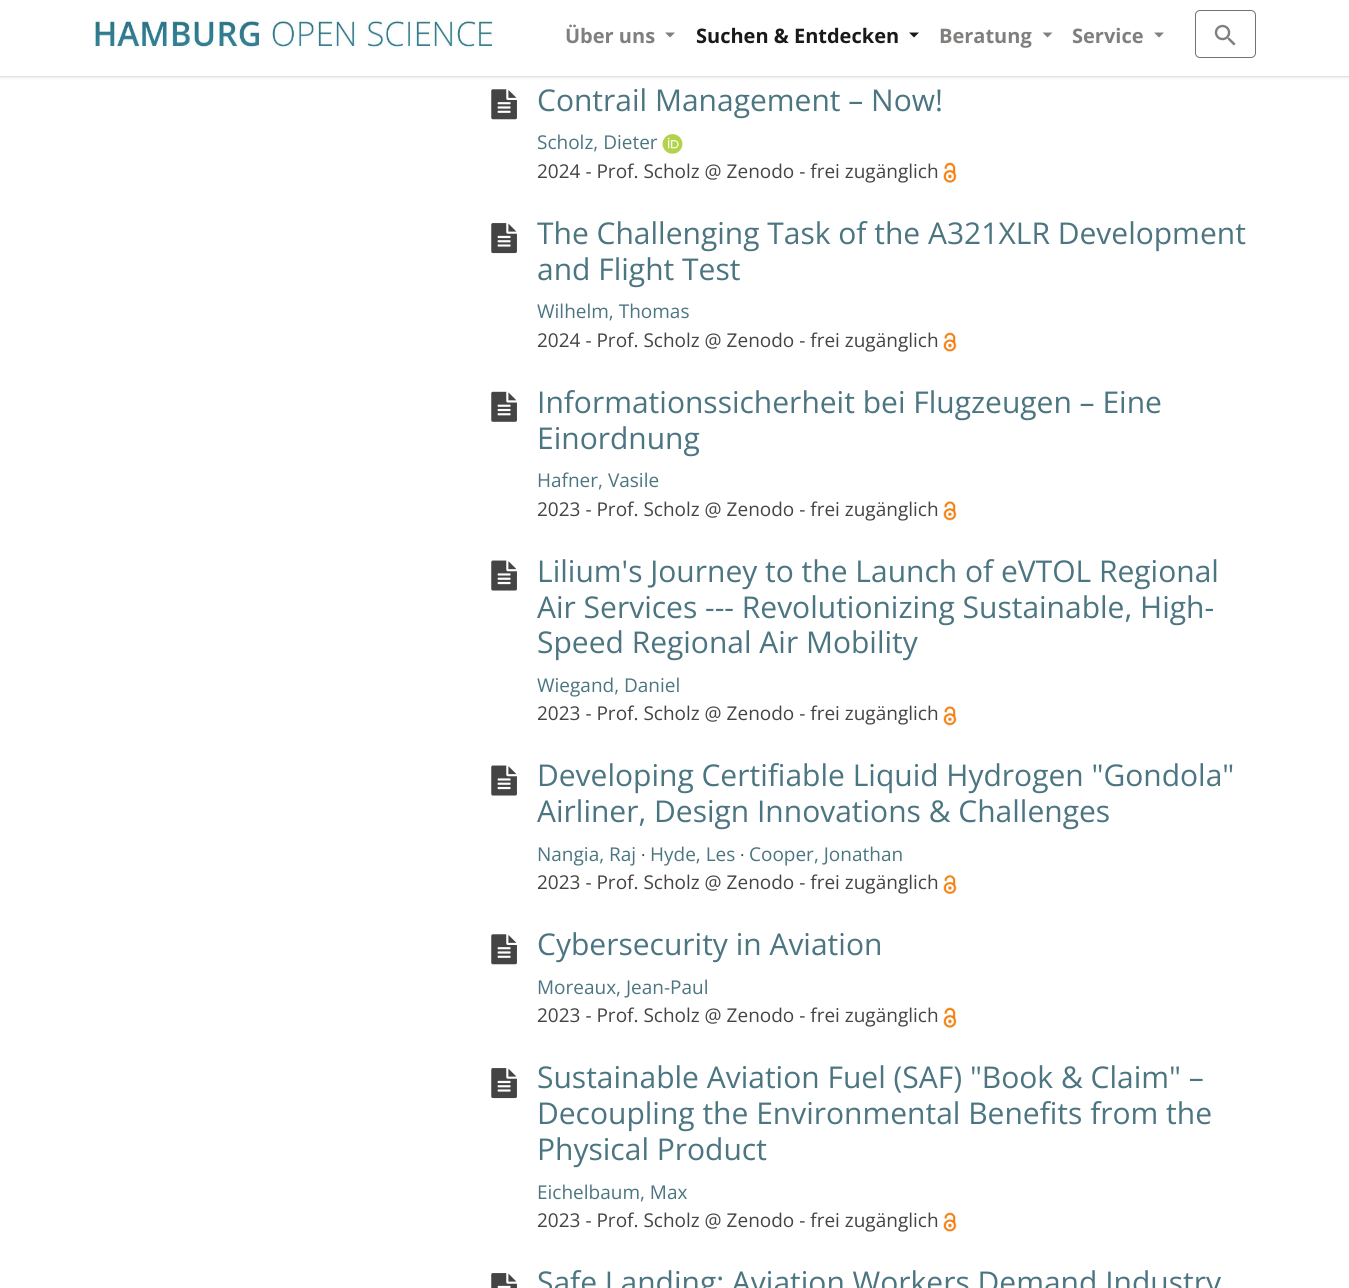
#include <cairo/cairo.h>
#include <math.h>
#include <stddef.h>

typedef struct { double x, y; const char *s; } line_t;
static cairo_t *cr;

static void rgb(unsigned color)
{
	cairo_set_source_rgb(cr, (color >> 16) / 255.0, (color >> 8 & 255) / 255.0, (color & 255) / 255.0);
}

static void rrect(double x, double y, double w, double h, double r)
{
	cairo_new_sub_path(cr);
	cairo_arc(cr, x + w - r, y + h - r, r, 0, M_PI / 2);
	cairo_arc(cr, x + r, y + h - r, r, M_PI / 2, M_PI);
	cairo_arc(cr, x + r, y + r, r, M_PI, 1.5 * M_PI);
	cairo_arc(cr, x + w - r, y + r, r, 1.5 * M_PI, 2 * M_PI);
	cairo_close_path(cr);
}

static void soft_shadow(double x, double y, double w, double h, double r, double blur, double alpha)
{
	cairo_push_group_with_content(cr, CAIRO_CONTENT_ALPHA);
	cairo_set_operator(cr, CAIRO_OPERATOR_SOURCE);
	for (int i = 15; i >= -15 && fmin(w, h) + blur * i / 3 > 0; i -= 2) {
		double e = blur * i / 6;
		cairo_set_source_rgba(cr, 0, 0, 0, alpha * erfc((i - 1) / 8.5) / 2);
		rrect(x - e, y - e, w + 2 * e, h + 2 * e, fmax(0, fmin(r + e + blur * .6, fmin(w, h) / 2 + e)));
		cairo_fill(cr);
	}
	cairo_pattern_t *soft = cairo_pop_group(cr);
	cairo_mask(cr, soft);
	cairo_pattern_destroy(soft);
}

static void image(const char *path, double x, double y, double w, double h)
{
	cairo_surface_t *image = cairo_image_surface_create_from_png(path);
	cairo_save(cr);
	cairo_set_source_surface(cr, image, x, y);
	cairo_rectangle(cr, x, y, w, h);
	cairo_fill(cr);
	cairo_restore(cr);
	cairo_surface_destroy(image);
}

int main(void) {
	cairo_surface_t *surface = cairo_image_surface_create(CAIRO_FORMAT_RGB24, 1349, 1288);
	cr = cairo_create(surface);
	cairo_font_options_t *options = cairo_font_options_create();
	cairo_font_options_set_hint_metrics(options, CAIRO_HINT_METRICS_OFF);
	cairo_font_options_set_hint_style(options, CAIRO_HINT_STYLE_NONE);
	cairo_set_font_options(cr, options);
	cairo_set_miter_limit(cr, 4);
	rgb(0xffffff);
	cairo_paint(cr);
	image("img/3.png", 943, 30, 14, 19);
	cairo_save(cr);
	cairo_rectangle(cr, 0, 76, 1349, 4);
	cairo_clip(cr);
	rgb(0xbbbbbb);
	soft_shadow(0, 0, 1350, 76, 0, 2, 1);
	cairo_restore(cr);
	image("img/1.png", 94, 19, 400, 30);
	cairo_set_source_rgba(cr, 0, 0, 0, 0.5);
	cairo_new_path(cr);
	cairo_move_to(cr, 665, 32.5);
	cairo_line_to(cr, 675, 32.5);
	cairo_line_to(cr, 670, 37.5);
	cairo_close_path(cr);
	cairo_fill(cr);
	cairo_set_source_rgba(cr, 0, 0, 0, 0.9);
	cairo_new_path(cr);
	cairo_move_to(cr, 909, 32.5);
	cairo_line_to(cr, 919, 32.5);
	cairo_line_to(cr, 914, 37.5);
	cairo_close_path(cr);
	cairo_fill(cr);
	rgb(0x808080);
	cairo_new_path(cr);
	cairo_move_to(cr, 1042.5, 32.5);
	cairo_line_to(cr, 1052.5, 32.5);
	cairo_line_to(cr, 1047.5, 37.5);
	cairo_close_path(cr);
	cairo_fill(cr);
	cairo_new_path(cr);
	cairo_move_to(cr, 1154, 32.5);
	cairo_line_to(cr, 1164, 32.5);
	cairo_line_to(cr, 1159, 37.5);
	cairo_close_path(cr);
	cairo_fill(cr);
	rrect(1195.5, 10.5, 60, 47, 4.5);
	rgb(0x6c757d);
	cairo_set_line_width(cr, 1);
	cairo_stroke(cr);
	image("img/2.png", 1214, 24, 22, 22);
	image("img/4.png", 491, 89, 26, 31);
	image("img/5.png", 662, 134, 21, 20);
	image("img/6.png", 943, 162, 14, 21);
	image("img/7.png", 491, 223, 26, 31);
	image("img/8.png", 943, 332, 14, 20);
	image("img/9.png", 491, 391, 26, 31);
	image("img/10.png", 943, 501, 14, 20);
	image("img/11.png", 491, 560, 26, 31);
	image("img/10.png", 943, 706, 14, 20);
	image("img/11.png", 491, 765, 26, 31);
	image("img/12.png", 943, 875, 14, 19);
	image("img/4.png", 491, 934, 26, 31);
	image("img/6.png", 943, 1007, 14, 21);
	image("img/7.png", 491, 1068, 26, 31);
	image("img/8.png", 943, 1212, 14, 20);
	image("img/13.png", 491, 1273, 26, 15);
	cairo_select_font_face(cr, "Open Sans", CAIRO_FONT_SLANT_NORMAL, CAIRO_FONT_WEIGHT_BOLD);
	cairo_set_font_size(cr, 20);
	rgb(0x7f7f7f);
	cairo_move_to(cr, 565, 43);
	cairo_show_text(cr, "Über uns");
	rgb(0x191919);
	cairo_move_to(cr, 696, 43);
	cairo_show_text(cr, "Suchen & Entdecken");
	rgb(0x7f7f7f);
	cairo_move_to(cr, 939, 43);
	cairo_show_text(cr, "Beratung");
	cairo_move_to(cr, 1072, 43);
	cairo_show_text(cr, "Service");
	cairo_select_font_face(cr, "Open Sans", CAIRO_FONT_SLANT_NORMAL, CAIRO_FONT_WEIGHT_NORMAL);
	cairo_set_font_size(cr, 30);
	rgb(0x4b7581);
	cairo_move_to(cr, 537, 111);
	cairo_show_text(cr, "Contrail Management – Now!");
	cairo_set_font_size(cr, 19);
	cairo_move_to(cr, 537, 149);
	cairo_show_text(cr, "Scholz, Dieter");
	rgb(0x444444);
	cairo_move_to(cr, 537, 178);
	cairo_show_text(cr, "2024 - Prof. Scholz @ Zenodo - frei zugänglich");
	cairo_set_font_size(cr, 30);
	rgb(0x4b7581);
	cairo_move_to(cr, 537, 244);
	cairo_show_text(cr, "The Challenging Task of the A321XLR Development");
	cairo_move_to(cr, 537, 280);
	cairo_show_text(cr, "and Flight Test");
	cairo_set_font_size(cr, 19);
	cairo_move_to(cr, 537, 318);
	cairo_show_text(cr, "Wilhelm, Thomas");
	rgb(0x444444);
	cairo_move_to(cr, 537, 347);
	cairo_show_text(cr, "2024 - Prof. Scholz @ Zenodo - frei zugänglich");
	cairo_set_font_size(cr, 30);
	rgb(0x4b7581);
	cairo_move_to(cr, 537, 413);
	cairo_show_text(cr, "Informationssicherheit bei Flugzeugen – Eine");
	cairo_move_to(cr, 537, 449);
	cairo_show_text(cr, "Einordnung");
	cairo_set_font_size(cr, 19);
	cairo_move_to(cr, 537, 487);
	cairo_show_text(cr, "Hafner, Vasile");
	rgb(0x444444);
	cairo_move_to(cr, 537, 516);
	cairo_show_text(cr, "2023 - Prof. Scholz @ Zenodo - frei zugänglich");
	cairo_set_font_size(cr, 30);
	rgb(0x4b7581);
	{
		static const line_t items[] = {
			{537, 582, "Lilium's Journey to the Launch of eVTOL Regional"},
			{537, 618, "Air Services --- Revolutionizing Sustainable, High-"},
			{537, 653, "Speed Regional Air Mobility"},
		};
		for (size_t i = 0; i < sizeof items / sizeof *items; i++) {
			cairo_move_to(cr, items[i].x, items[i].y);
			cairo_show_text(cr, items[i].s);
		}
	}
	cairo_set_font_size(cr, 19);
	cairo_move_to(cr, 537, 692);
	cairo_show_text(cr, "Wiegand, Daniel");
	rgb(0x444444);
	cairo_move_to(cr, 537, 720);
	cairo_show_text(cr, "2023 - Prof. Scholz @ Zenodo - frei zugänglich");
	cairo_set_font_size(cr, 30);
	rgb(0x4b7581);
	cairo_move_to(cr, 537, 786);
	cairo_show_text(cr, "Developing Certifiable Liquid Hydrogen \"Gondola\"");
	cairo_move_to(cr, 537, 822);
	cairo_show_text(cr, "Airliner, Design Innovations & Challenges");
	cairo_set_font_size(cr, 19);
	cairo_move_to(cr, 537, 861);
	cairo_show_text(cr, "Nangia, Raj");
	cairo_set_font_size(cr, 17);
	rgb(0x444444);
	cairo_move_to(cr, 641, 861);
	cairo_show_text(cr, "·");
	cairo_set_font_size(cr, 19);
	rgb(0x4b7581);
	cairo_move_to(cr, 650, 861);
	cairo_show_text(cr, "Hyde, Les");
	cairo_set_font_size(cr, 17);
	rgb(0x444444);
	cairo_move_to(cr, 740, 861);
	cairo_show_text(cr, "·");
	cairo_set_font_size(cr, 19);
	rgb(0x4b7581);
	cairo_move_to(cr, 749, 861);
	cairo_show_text(cr, "Cooper, Jonathan");
	rgb(0x444444);
	cairo_move_to(cr, 537, 889);
	cairo_show_text(cr, "2023 - Prof. Scholz @ Zenodo - frei zugänglich");
	cairo_set_font_size(cr, 30);
	rgb(0x4b7581);
	cairo_move_to(cr, 537, 955);
	cairo_show_text(cr, "Cybersecurity in Aviation");
	cairo_set_font_size(cr, 19);
	cairo_move_to(cr, 537, 994);
	cairo_show_text(cr, "Moreaux, Jean-Paul");
	rgb(0x444444);
	cairo_move_to(cr, 537, 1022);
	cairo_show_text(cr, "2023 - Prof. Scholz @ Zenodo - frei zugänglich");
	cairo_set_font_size(cr, 30);
	rgb(0x4b7581);
	{
		static const line_t items[] = {
			{537, 1088, "Sustainable Aviation Fuel (SAF) \"Book & Claim\" –"},
			{537, 1124, "Decoupling the Environmental Benefits from the"},
			{537, 1160, "Physical Product"},
		};
		for (size_t i = 0; i < sizeof items / sizeof *items; i++) {
			cairo_move_to(cr, items[i].x, items[i].y);
			cairo_show_text(cr, items[i].s);
		}
	}
	cairo_set_font_size(cr, 19);
	cairo_move_to(cr, 537, 1199);
	cairo_show_text(cr, "Eichelbaum, Max");
	rgb(0x444444);
	cairo_move_to(cr, 537, 1227);
	cairo_show_text(cr, "2023 - Prof. Scholz @ Zenodo - frei zugänglich");
	cairo_set_font_size(cr, 30);
	rgb(0x4b7581);
	cairo_move_to(cr, 537, 1293);
	cairo_show_text(cr, "Safe Landing: Aviation Workers Demand Industry");
	cairo_surface_write_to_png(surface, "page.png");
	cairo_font_options_destroy(options);
	cairo_destroy(cr);
	cairo_surface_destroy(surface);
	return 0;
}
